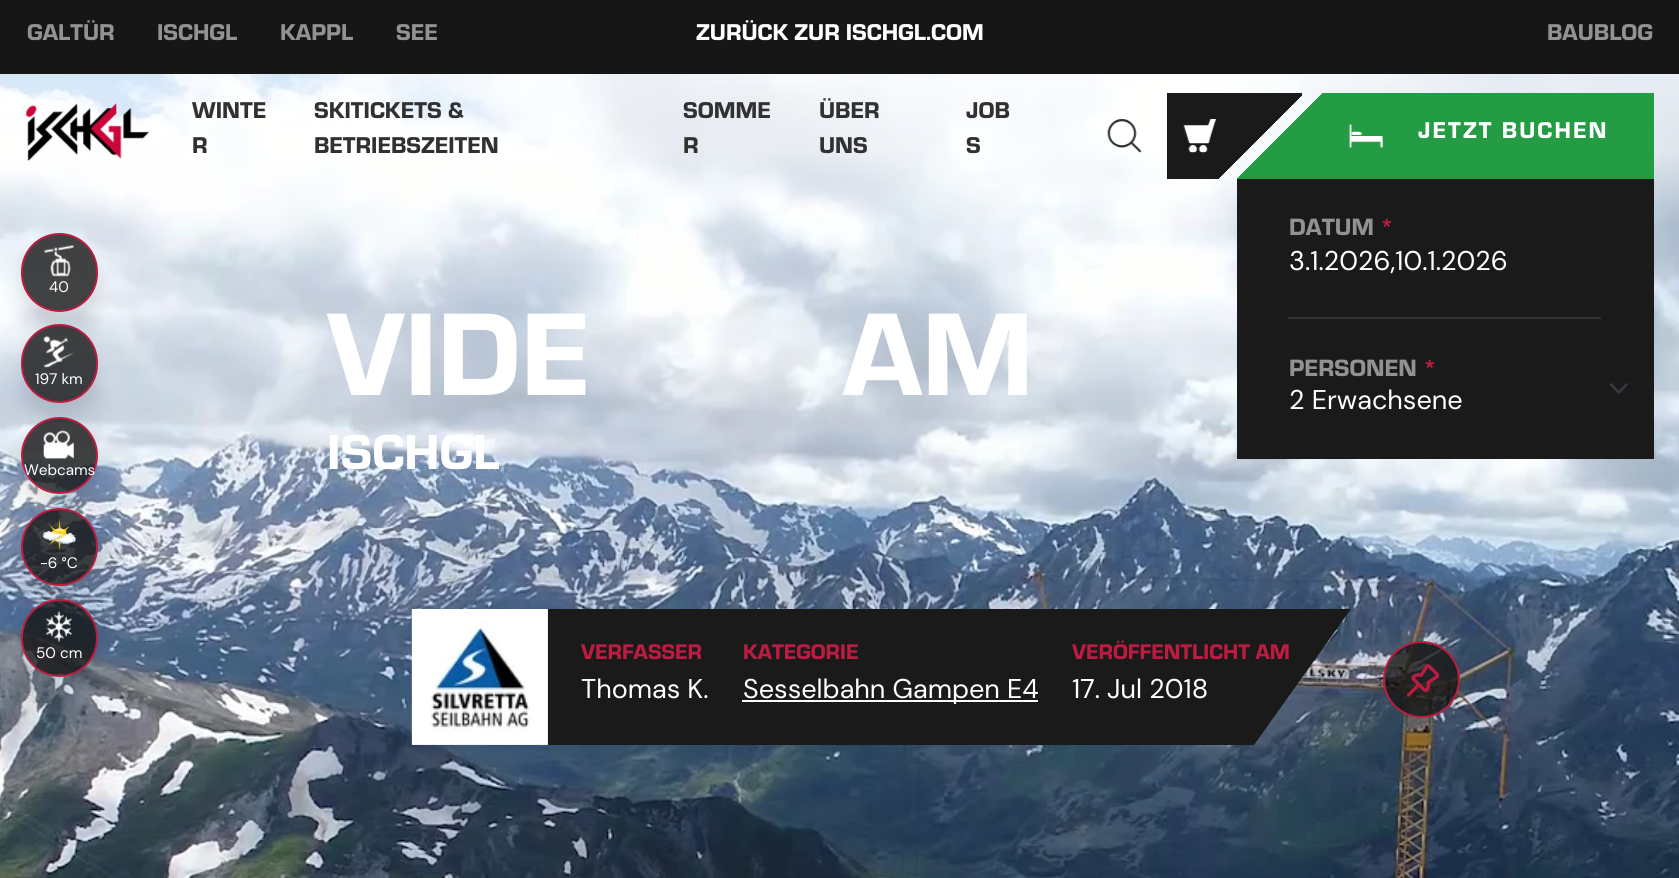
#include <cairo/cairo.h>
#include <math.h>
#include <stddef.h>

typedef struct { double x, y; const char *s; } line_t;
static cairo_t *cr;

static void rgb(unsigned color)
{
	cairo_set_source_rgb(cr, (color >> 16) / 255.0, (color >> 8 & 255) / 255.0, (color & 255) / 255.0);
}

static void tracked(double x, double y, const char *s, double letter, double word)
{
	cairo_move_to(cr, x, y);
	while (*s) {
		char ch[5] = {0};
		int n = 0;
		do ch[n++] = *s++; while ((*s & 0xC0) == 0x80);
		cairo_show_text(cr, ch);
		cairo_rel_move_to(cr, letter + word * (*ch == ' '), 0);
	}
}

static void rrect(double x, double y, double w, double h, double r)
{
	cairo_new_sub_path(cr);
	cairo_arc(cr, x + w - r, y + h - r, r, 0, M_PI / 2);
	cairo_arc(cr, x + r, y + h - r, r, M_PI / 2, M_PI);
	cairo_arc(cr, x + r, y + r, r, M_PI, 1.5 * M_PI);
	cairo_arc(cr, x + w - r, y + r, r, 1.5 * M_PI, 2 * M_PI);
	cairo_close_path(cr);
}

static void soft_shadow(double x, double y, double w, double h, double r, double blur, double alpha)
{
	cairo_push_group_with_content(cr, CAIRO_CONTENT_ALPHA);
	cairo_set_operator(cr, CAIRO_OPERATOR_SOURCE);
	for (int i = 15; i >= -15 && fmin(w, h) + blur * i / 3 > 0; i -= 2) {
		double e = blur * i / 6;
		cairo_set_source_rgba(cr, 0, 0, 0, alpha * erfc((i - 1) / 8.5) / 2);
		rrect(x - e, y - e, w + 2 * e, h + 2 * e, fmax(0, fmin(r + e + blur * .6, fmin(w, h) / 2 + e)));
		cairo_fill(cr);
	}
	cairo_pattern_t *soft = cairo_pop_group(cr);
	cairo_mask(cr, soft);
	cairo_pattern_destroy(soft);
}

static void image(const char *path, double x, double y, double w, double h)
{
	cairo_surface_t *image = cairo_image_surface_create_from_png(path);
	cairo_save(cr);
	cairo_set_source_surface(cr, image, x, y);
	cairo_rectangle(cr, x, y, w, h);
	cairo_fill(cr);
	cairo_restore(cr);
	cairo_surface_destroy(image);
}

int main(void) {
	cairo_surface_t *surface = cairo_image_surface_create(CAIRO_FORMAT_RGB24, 1679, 878);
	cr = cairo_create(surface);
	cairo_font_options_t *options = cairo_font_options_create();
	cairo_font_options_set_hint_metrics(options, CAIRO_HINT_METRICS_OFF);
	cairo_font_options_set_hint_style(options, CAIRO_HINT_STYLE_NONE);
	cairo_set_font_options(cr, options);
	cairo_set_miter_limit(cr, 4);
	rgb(0xffffff);
	cairo_paint(cr);
	rgb(0x161616);
	cairo_rectangle(cr, 0, 0, 1679, 74);
	cairo_fill(cr);
	image("img/10.png", 0, 74, 1679, 804);
	image("img/1.png", 26, 103, 124, 58);
	image("img/2.png", 1107, 119, 35, 34);
	image("img/3.png", 1183, 119, 34, 34);
	image("img/4.png", 1348, 124, 35, 24);
	rgb(0x1a1a1a);
	cairo_rectangle(cr, 1237, 179, 417, 280);
	cairo_fill(cr);
	rgb(0x313131);
	cairo_rectangle(cr, 1288, 317, 313, 2);
	cairo_fill(cr);
	cairo_new_path(cr);
	cairo_move_to(cr, 1611, 384.5);
	cairo_line_to(cr, 1619, 392.5);
	cairo_line_to(cr, 1626.5, 384.5);
	rgb(0x343a40);
	cairo_set_line_width(cr, 2.6);
	cairo_set_line_cap(cr, CAIRO_LINE_CAP_ROUND);
	cairo_set_line_join(cr, CAIRO_LINE_JOIN_ROUND);
	cairo_stroke(cr);
	cairo_save(cr);
	cairo_set_fill_rule(cr, CAIRO_FILL_RULE_EVEN_ODD);
	cairo_new_path(cr);
	cairo_move_to(cr, 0, 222);
	cairo_line_to(cr, 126, 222);
	cairo_line_to(cr, 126, 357);
	cairo_line_to(cr, 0, 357);
	cairo_close_path(cr);
	cairo_move_to(cr, 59.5, 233);
	cairo_curve_to(cr, 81, 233, 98, 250, 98, 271.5);
	cairo_line_to(cr, 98, 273.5);
	cairo_curve_to(cr, 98, 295, 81, 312, 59.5, 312);
	cairo_curve_to(cr, 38, 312, 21, 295, 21, 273.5);
	cairo_line_to(cr, 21, 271.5);
	cairo_curve_to(cr, 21, 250, 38, 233, 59.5, 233);
	cairo_close_path(cr);
	cairo_clip(cr);
	rgb(0x000000);
	soft_shadow(21, 250, 77, 79, 38.5, 9, 0.1);
	cairo_restore(cr);
	cairo_set_source_rgba(cr, 0.086, 0.086, 0.086, 0.8);
	rrect(22, 234, 75, 77, 37.5);
	cairo_fill_preserve(cr);
	rgb(0xbb1c3f);
	cairo_set_line_width(cr, 2);
	cairo_set_line_cap(cr, CAIRO_LINE_CAP_BUTT);
	cairo_set_line_join(cr, CAIRO_LINE_JOIN_MITER);
	cairo_stroke(cr);
	image("img/5.png", 43, 245, 31, 32);
	cairo_save(cr);
	cairo_set_fill_rule(cr, CAIRO_FILL_RULE_EVEN_ODD);
	cairo_new_path(cr);
	cairo_move_to(cr, 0, 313);
	cairo_line_to(cr, 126, 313);
	cairo_line_to(cr, 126, 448);
	cairo_line_to(cr, 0, 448);
	cairo_close_path(cr);
	cairo_move_to(cr, 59.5, 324);
	cairo_curve_to(cr, 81, 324, 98, 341, 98, 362.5);
	cairo_line_to(cr, 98, 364.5);
	cairo_curve_to(cr, 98, 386, 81, 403, 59.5, 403);
	cairo_curve_to(cr, 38, 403, 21, 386, 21, 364.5);
	cairo_line_to(cr, 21, 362.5);
	cairo_curve_to(cr, 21, 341, 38, 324, 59.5, 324);
	cairo_close_path(cr);
	cairo_clip(cr);
	rgb(0x000000);
	soft_shadow(21, 341, 77, 79, 38.5, 9, 0.1);
	cairo_restore(cr);
	cairo_set_source_rgba(cr, 0.086, 0.086, 0.086, 0.8);
	rrect(22, 325, 75, 77, 37.5);
	cairo_fill_preserve(cr);
	rgb(0xbb1c3f);
	cairo_stroke(cr);
	image("img/6.png", 43, 336, 31, 32);
	cairo_save(cr);
	cairo_set_fill_rule(cr, CAIRO_FILL_RULE_EVEN_ODD);
	cairo_new_path(cr);
	cairo_move_to(cr, 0, 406);
	cairo_line_to(cr, 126, 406);
	cairo_line_to(cr, 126, 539);
	cairo_line_to(cr, 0, 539);
	cairo_close_path(cr);
	cairo_move_to(cr, 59.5, 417);
	cairo_curve_to(cr, 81, 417, 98, 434, 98, 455.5);
	cairo_curve_to(cr, 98, 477, 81, 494, 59.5, 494);
	cairo_curve_to(cr, 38, 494, 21, 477, 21, 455.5);
	cairo_curve_to(cr, 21, 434, 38, 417, 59.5, 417);
	cairo_close_path(cr);
	cairo_clip(cr);
	rgb(0x000000);
	soft_shadow(21, 434, 77, 77, 38.5, 9, 0.1);
	cairo_restore(cr);
	cairo_set_source_rgba(cr, 0.086, 0.086, 0.086, 0.8);
	cairo_arc(cr, 59.5, 455.5, 37.5, 0, 2 * M_PI);
	cairo_fill_preserve(cr);
	rgb(0xbb1c3f);
	cairo_stroke(cr);
	image("img/7.png", 43, 430, 31, 29);
	cairo_save(cr);
	cairo_set_fill_rule(cr, CAIRO_FILL_RULE_EVEN_ODD);
	cairo_new_path(cr);
	cairo_move_to(cr, 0, 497);
	cairo_line_to(cr, 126, 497);
	cairo_line_to(cr, 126, 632);
	cairo_line_to(cr, 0, 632);
	cairo_close_path(cr);
	cairo_move_to(cr, 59.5, 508);
	cairo_curve_to(cr, 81, 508, 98, 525, 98, 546.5);
	cairo_line_to(cr, 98, 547.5);
	cairo_curve_to(cr, 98, 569, 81, 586, 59.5, 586);
	cairo_curve_to(cr, 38, 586, 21, 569, 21, 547.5);
	cairo_line_to(cr, 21, 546.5);
	cairo_curve_to(cr, 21, 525, 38, 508, 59.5, 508);
	cairo_close_path(cr);
	cairo_clip(cr);
	rgb(0x000000);
	soft_shadow(21, 525, 77, 79, 38.5, 9, 0.1);
	cairo_restore(cr);
	cairo_set_source_rgba(cr, 0.086, 0.086, 0.086, 0.8);
	rrect(22, 509, 75, 76, 37.5);
	cairo_fill_preserve(cr);
	rgb(0xbb1c3f);
	cairo_stroke(cr);
	image("img/8.png", 42, 518, 35, 34);
	cairo_save(cr);
	cairo_set_fill_rule(cr, CAIRO_FILL_RULE_EVEN_ODD);
	cairo_new_path(cr);
	cairo_move_to(cr, 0, 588);
	cairo_line_to(cr, 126, 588);
	cairo_line_to(cr, 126, 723);
	cairo_line_to(cr, 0, 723);
	cairo_close_path(cr);
	cairo_move_to(cr, 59.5, 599);
	cairo_curve_to(cr, 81, 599, 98, 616, 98, 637.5);
	cairo_line_to(cr, 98, 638.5);
	cairo_curve_to(cr, 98, 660, 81, 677, 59.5, 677);
	cairo_curve_to(cr, 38, 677, 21, 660, 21, 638.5);
	cairo_line_to(cr, 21, 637.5);
	cairo_curve_to(cr, 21, 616, 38, 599, 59.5, 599);
	cairo_close_path(cr);
	cairo_clip(cr);
	rgb(0x000000);
	soft_shadow(21, 616, 77, 79, 38.5, 9, 0.1);
	cairo_restore(cr);
	cairo_set_source_rgba(cr, 0.086, 0.086, 0.086, 0.8);
	rrect(22, 600, 75, 76, 37.5);
	cairo_fill_preserve(cr);
	rgb(0xbb1c3f);
	cairo_stroke(cr);
	image("img/9.png", 45, 611, 28, 32);
	rgb(0x1a1a1a);
	cairo_set_fill_rule(cr, CAIRO_FILL_RULE_EVEN_ODD);
	cairo_new_path(cr);
	cairo_move_to(cr, 1378, 609);
	cairo_line_to(cr, 1351, 609);
	cairo_close_path(cr);
	cairo_move_to(cr, 1351, 609);
	cairo_line_to(cr, 412, 609);
	cairo_line_to(cr, 412, 745);
	cairo_line_to(cr, 1254, 745);
	cairo_close_path(cr);
	cairo_fill(cr);
	image("img/11.png", 411, 609, 137, 136);
	image("img/12.png", 411, 609, 137, 136);
	rgb(0xffffff);
	cairo_rectangle(cr, 742, 700, 296, 2);
	cairo_fill(cr);
	cairo_set_source_rgba(cr, 0.086, 0.086, 0.086, 0.8);
	cairo_arc(cr, 1421.5, 679.5, 37.5, 0, 2 * M_PI);
	cairo_fill_preserve(cr);
	rgb(0xbb1c3f);
	cairo_stroke(cr);
	image("img/13.png", 1407, 664, 33, 33);
	cairo_select_font_face(cr, "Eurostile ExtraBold", CAIRO_FONT_SLANT_NORMAL, CAIRO_FONT_WEIGHT_NORMAL);
	cairo_set_font_size(cr, 23.75);
	rgb(0x929292);
	{
		static const line_t items[] = {
			{27, 40, "GALTÜR"},
			{157, 40, "ISCHGL"},
			{280, 40, "KAPPL"},
			{396, 40, "SEE"},
		};
		for (size_t i = 0; i < sizeof items / sizeof *items; i++) {
			cairo_move_to(cr, items[i].x, items[i].y);
			cairo_show_text(cr, items[i].s);
		}
	}
	rgb(0xffffff);
	cairo_move_to(cr, 696, 40);
	cairo_show_text(cr, "ZURÜCK ZUR ISCHGL.COM");
	rgb(0x929292);
	cairo_move_to(cr, 1547, 40);
	cairo_show_text(cr, "BAUBLOG");
	rgb(0x313131);
	{
		static const line_t items[] = {
			{192, 118, "WINTE"},
			{192, 153, "R"},
			{314, 118, "SKITICKETS &"},
			{314, 153, "BETRIEBSZEITEN"},
			{683, 118, "SOMME"},
			{683, 153, "R"},
			{819, 118, "ÜBER"},
			{819, 153, "UNS"},
			{966, 118, "JOB"},
			{966, 153, "S"},
		};
		for (size_t i = 0; i < sizeof items / sizeof *items; i++) {
			cairo_move_to(cr, items[i].x, items[i].y);
			cairo_show_text(cr, items[i].s);
		}
	}
	rgb(0xffffff);
	tracked(1418, 138, "JETZT BUCHEN", 2.1, 0);
	cairo_set_font_size(cr, 24.5);
	rgb(0x929292);
	cairo_move_to(cr, 1289, 235);
	cairo_show_text(cr, "DATUM");
	rgb(0xbb1c3f);
	cairo_move_to(cr, 1379, 235);
	cairo_show_text(cr, "*");
	cairo_select_font_face(cr, "DM Sans", CAIRO_FONT_SLANT_NORMAL, CAIRO_FONT_WEIGHT_NORMAL);
	cairo_set_font_size(cr, 27.1);
	rgb(0xffffff);
	cairo_move_to(cr, 1289, 270);
	cairo_show_text(cr, "3.1.2026,10.1.2026");
	cairo_select_font_face(cr, "Eurostile ExtraBold", CAIRO_FONT_SLANT_NORMAL, CAIRO_FONT_WEIGHT_NORMAL);
	cairo_set_font_size(cr, 24.5);
	rgb(0x929292);
	cairo_move_to(cr, 1289, 376);
	cairo_show_text(cr, "PERSONEN");
	rgb(0xbb1c3f);
	cairo_move_to(cr, 1422, 376);
	cairo_show_text(cr, "*");
	cairo_select_font_face(cr, "DM Sans", CAIRO_FONT_SLANT_NORMAL, CAIRO_FONT_WEIGHT_NORMAL);
	cairo_set_font_size(cr, 27.1);
	rgb(0xffffff);
	cairo_move_to(cr, 1289, 409);
	cairo_show_text(cr, "2 Erwachsene");
	cairo_set_font_size(cr, 15.25);
	{
		static const line_t items[] = {
			{49, 292, "40"},
			{35, 384, "197 km"},
			{24, 475, "Webcams"},
			{40, 568, "-6 °C"},
			{36, 658, "50 cm"},
		};
		for (size_t i = 0; i < sizeof items / sizeof *items; i++) {
			cairo_move_to(cr, items[i].x, items[i].y);
			cairo_show_text(cr, items[i].s);
		}
	}
	cairo_select_font_face(cr, "Eurostile ExtraBold", CAIRO_FONT_SLANT_NORMAL, CAIRO_FONT_WEIGHT_NORMAL);
	cairo_set_font_size(cr, 122);
	cairo_move_to(cr, 327, 395);
	cairo_show_text(cr, "VIDE");
	cairo_move_to(cr, 843, 395);
	cairo_show_text(cr, "AM");
	cairo_set_font_size(cr, 51);
	cairo_move_to(cr, 327, 469);
	cairo_show_text(cr, "ISCHGL");
	cairo_set_font_size(cr, 22);
	rgb(0xbb1c3f);
	cairo_move_to(cr, 581, 659);
	cairo_show_text(cr, "VERFASSER");
	cairo_select_font_face(cr, "DM Sans", CAIRO_FONT_SLANT_NORMAL, CAIRO_FONT_WEIGHT_NORMAL);
	cairo_set_font_size(cr, 27.1);
	rgb(0xffffff);
	cairo_move_to(cr, 581, 698);
	cairo_show_text(cr, "Thomas K.");
	cairo_select_font_face(cr, "Eurostile ExtraBold", CAIRO_FONT_SLANT_NORMAL, CAIRO_FONT_WEIGHT_NORMAL);
	cairo_set_font_size(cr, 22);
	rgb(0xbb1c3f);
	cairo_move_to(cr, 743, 659);
	cairo_show_text(cr, "KATEGORIE");
	cairo_select_font_face(cr, "DM Sans", CAIRO_FONT_SLANT_NORMAL, CAIRO_FONT_WEIGHT_NORMAL);
	cairo_set_font_size(cr, 27.1);
	rgb(0xffffff);
	cairo_move_to(cr, 743, 698);
	cairo_show_text(cr, "Sesselbahn Gampen E4");
	cairo_select_font_face(cr, "Eurostile ExtraBold", CAIRO_FONT_SLANT_NORMAL, CAIRO_FONT_WEIGHT_NORMAL);
	cairo_set_font_size(cr, 22);
	rgb(0xbb1c3f);
	cairo_move_to(cr, 1072, 659);
	cairo_show_text(cr, "VERÖFFENTLICHT AM");
	cairo_select_font_face(cr, "DM Sans", CAIRO_FONT_SLANT_NORMAL, CAIRO_FONT_WEIGHT_NORMAL);
	cairo_set_font_size(cr, 27.1);
	rgb(0xffffff);
	cairo_move_to(cr, 1072, 698);
	cairo_show_text(cr, "17. Jul 2018");
	cairo_surface_write_to_png(surface, "page.png");
	cairo_font_options_destroy(options);
	cairo_destroy(cr);
	cairo_surface_destroy(surface);
	return 0;
}
